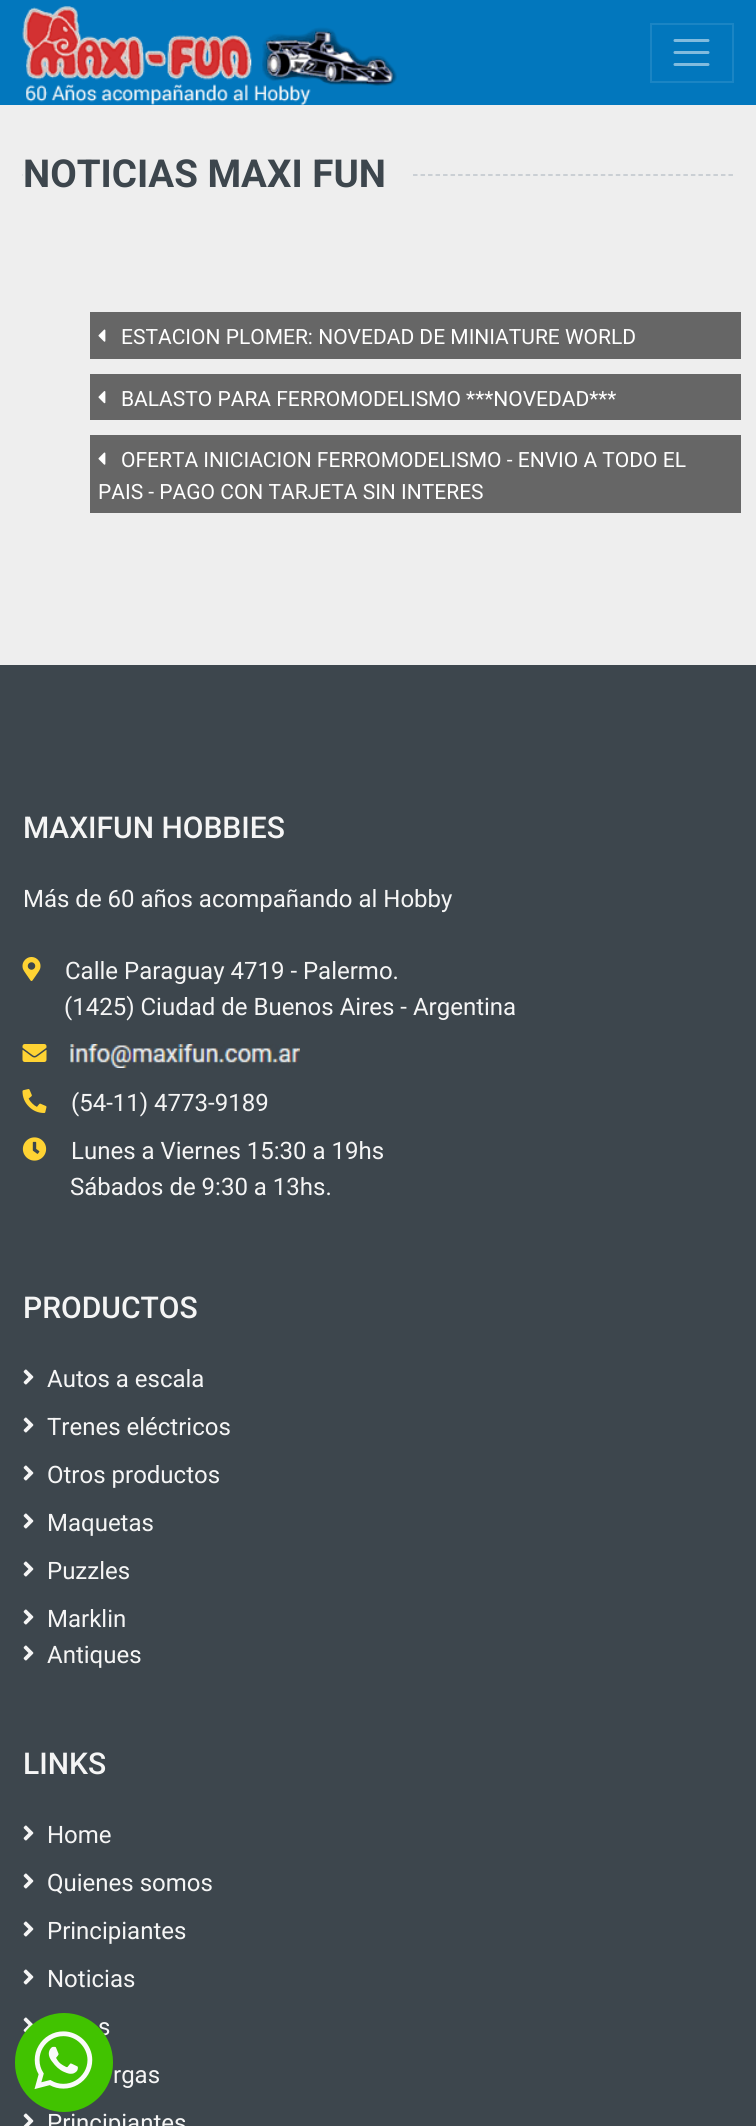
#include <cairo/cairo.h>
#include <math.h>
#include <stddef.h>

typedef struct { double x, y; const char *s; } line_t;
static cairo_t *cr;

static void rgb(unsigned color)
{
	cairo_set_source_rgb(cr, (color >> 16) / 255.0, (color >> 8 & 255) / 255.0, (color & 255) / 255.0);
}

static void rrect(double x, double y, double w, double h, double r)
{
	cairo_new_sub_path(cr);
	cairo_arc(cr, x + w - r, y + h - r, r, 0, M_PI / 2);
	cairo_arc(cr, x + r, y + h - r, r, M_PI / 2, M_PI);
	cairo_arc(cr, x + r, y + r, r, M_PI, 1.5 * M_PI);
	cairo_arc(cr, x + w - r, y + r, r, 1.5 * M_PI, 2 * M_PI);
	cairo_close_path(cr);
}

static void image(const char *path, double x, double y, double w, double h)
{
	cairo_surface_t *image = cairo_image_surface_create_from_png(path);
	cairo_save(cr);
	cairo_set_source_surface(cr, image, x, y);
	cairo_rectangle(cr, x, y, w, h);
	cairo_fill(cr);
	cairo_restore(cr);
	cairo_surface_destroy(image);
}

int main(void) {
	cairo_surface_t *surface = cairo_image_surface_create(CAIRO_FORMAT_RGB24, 756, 2126);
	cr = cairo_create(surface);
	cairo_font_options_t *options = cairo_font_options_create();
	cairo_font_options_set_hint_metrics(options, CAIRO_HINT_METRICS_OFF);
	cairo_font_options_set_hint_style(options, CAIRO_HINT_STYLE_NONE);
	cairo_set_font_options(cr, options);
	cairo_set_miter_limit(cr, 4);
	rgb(0xeeeeee);
	cairo_paint(cr);
	rgb(0x0277bd);
	cairo_rectangle(cr, 0, 0, 756, 105);
	cairo_fill(cr);
	image("img/1.png", 22, 0, 375, 105);
	cairo_rectangle(cr, 651, 24, 82, 58);
	rgb(0x1b85c4);
	cairo_stroke(cr);
	cairo_new_path(cr);
	cairo_move_to(cr, 675, 40.5);
	cairo_line_to(cr, 708, 40.5);
	cairo_move_to(cr, 675, 52.5);
	cairo_line_to(cr, 708, 52.5);
	cairo_move_to(cr, 675, 64.5);
	cairo_line_to(cr, 708, 64.5);
	rgb(0x81bbde);
	cairo_set_line_width(cr, 3);
	cairo_set_line_cap(cr, CAIRO_LINE_CAP_ROUND);
	cairo_stroke(cr);
	cairo_new_path(cr);
	cairo_move_to(cr, 22.5, 175);
	cairo_line_to(cr, 733.5, 175);
	rgb(0xbec5cb);
	cairo_set_line_width(cr, 1.5);
	cairo_set_line_cap(cr, CAIRO_LINE_CAP_BUTT);
	cairo_set_dash(cr, (double[]){4.5, 3.01}, 2, 0);
	cairo_stroke(cr);
	rgb(0xeeeeee);
	cairo_rectangle(cr, 23, 174, 387, 2);
	cairo_fill(cr);
	rgb(0x666666);
	cairo_rectangle(cr, 90, 312, 651, 47);
	cairo_fill(cr);
	image("img/2.png", 98, 329, 8, 13);
	cairo_rectangle(cr, 90, 374, 651, 46);
	cairo_fill(cr);
	image("img/3.png", 98, 391, 8, 13);
	cairo_rectangle(cr, 90, 435, 651, 78);
	cairo_fill(cr);
	image("img/2.png", 98, 452, 8, 13);
	rgb(0x3d464d);
	cairo_rectangle(cr, 0, 665, 756, 1461);
	cairo_fill(cr);
	image("img/4.png", 22, 957, 19, 24);
	image("img/5.png", 22, 1044, 25, 18);
	image("img/6.png", 70, 1044, 230, 24);
	image("img/7.png", 22, 1089, 25, 24);
	image("img/8.png", 22, 1137, 25, 24);
	image("img/9.png", 23, 1369, 11, 16);
	image("img/9.png", 23, 1417, 11, 16);
	image("img/9.png", 23, 1465, 11, 16);
	image("img/9.png", 23, 1513, 11, 16);
	image("img/9.png", 23, 1561, 11, 16);
	image("img/9.png", 23, 1609, 11, 16);
	image("img/9.png", 23, 1645, 11, 16);
	image("img/9.png", 23, 1825, 11, 16);
	image("img/9.png", 23, 1873, 11, 16);
	image("img/9.png", 23, 1921, 11, 16);
	image("img/9.png", 23, 1969, 11, 16);
	image("img/10.png", 23, 2017, 10, 16);
	image("img/11.png", 23, 2113, 11, 13);
	cairo_select_font_face(cr, "Roboto", CAIRO_FONT_SLANT_NORMAL, CAIRO_FONT_WEIGHT_BOLD);
	cairo_set_font_size(cr, 38.5);
	cairo_move_to(cr, 23, 187);
	cairo_show_text(cr, "NOTICIAS MAXI FUN");
	cairo_select_font_face(cr, "Roboto", CAIRO_FONT_SLANT_NORMAL, CAIRO_FONT_WEIGHT_NORMAL);
	cairo_set_font_size(cr, 21);
	rgb(0xffffff);
	{
		static const line_t items[] = {
			{121, 344, "ESTACION PLOMER: NOVEDAD DE MINIATURE WORLD"},
			{121, 406, "BALASTO PARA FERROMODELISMO ***NOVEDAD***"},
			{121, 467, "OFERTA INICIACION FERROMODELISMO - ENVIO A TODO EL"},
			{98, 499, "PAIS - PAGO CON TARJETA SIN INTERES"},
		};
		for (size_t i = 0; i < sizeof items / sizeof *items; i++) {
			cairo_move_to(cr, items[i].x, items[i].y);
			cairo_show_text(cr, items[i].s);
		}
	}
	cairo_select_font_face(cr, "Roboto Medium", CAIRO_FONT_SLANT_NORMAL, CAIRO_FONT_WEIGHT_NORMAL);
	cairo_set_font_size(cr, 30);
	rgb(0xf5f5f5);
	cairo_move_to(cr, 23, 838);
	cairo_show_text(cr, "MAXIFUN HOBBIES");
	cairo_select_font_face(cr, "Roboto", CAIRO_FONT_SLANT_NORMAL, CAIRO_FONT_WEIGHT_NORMAL);
	cairo_set_font_size(cr, 24);
	{
		static const line_t items[] = {
			{23, 907, "Más de 60 años acompañando al Hobby"},
			{65, 979, "Calle Paraguay 4719 - Palermo."},
			{64, 1015, "(1425) Ciudad de Buenos Aires - Argentina"},
			{71, 1111, "(54-11) 4773-9189"},
			{71, 1159, "Lunes a Viernes 15:30 a 19hs"},
			{70, 1195, "Sábados de 9:30 a 13hs."},
		};
		for (size_t i = 0; i < sizeof items / sizeof *items; i++) {
			cairo_move_to(cr, items[i].x, items[i].y);
			cairo_show_text(cr, items[i].s);
		}
	}
	cairo_select_font_face(cr, "Roboto Medium", CAIRO_FONT_SLANT_NORMAL, CAIRO_FONT_WEIGHT_NORMAL);
	cairo_set_font_size(cr, 30);
	cairo_move_to(cr, 23, 1318);
	cairo_show_text(cr, "PRODUCTOS");
	cairo_select_font_face(cr, "Roboto", CAIRO_FONT_SLANT_NORMAL, CAIRO_FONT_WEIGHT_NORMAL);
	cairo_set_font_size(cr, 24);
	{
		static const line_t items[] = {
			{47, 1387, "Autos a escala"},
			{47, 1435, "Trenes eléctricos"},
			{47, 1483, "Otros productos"},
			{47, 1531, "Maquetas"},
			{47, 1579, "Puzzles"},
			{47, 1627, "Marklin"},
			{47, 1663, "Antiques"},
		};
		for (size_t i = 0; i < sizeof items / sizeof *items; i++) {
			cairo_move_to(cr, items[i].x, items[i].y);
			cairo_show_text(cr, items[i].s);
		}
	}
	cairo_select_font_face(cr, "Roboto Medium", CAIRO_FONT_SLANT_NORMAL, CAIRO_FONT_WEIGHT_NORMAL);
	cairo_set_font_size(cr, 30);
	cairo_move_to(cr, 23, 1774);
	cairo_show_text(cr, "LINKS");
	cairo_select_font_face(cr, "Roboto", CAIRO_FONT_SLANT_NORMAL, CAIRO_FONT_WEIGHT_NORMAL);
	cairo_set_font_size(cr, 24);
	{
		static const line_t items[] = {
			{47, 1843, "Home"},
			{47, 1891, "Quienes somos"},
			{47, 1939, "Principiantes"},
			{47, 1987, "Noticias"},
			{98, 2035, "s"},
			{113, 2083, "rgas"},
			{47, 2131, "Principiantes"},
		};
		for (size_t i = 0; i < sizeof items / sizeof *items; i++) {
			cairo_move_to(cr, items[i].x, items[i].y);
			cairo_show_text(cr, items[i].s);
		}
	}
	rgb(0x41c300);
	rrect(15, 2013, 98, 99, 49);
	cairo_fill(cr);
	image("img/12.png", 34, 2031, 59, 59);
	cairo_surface_write_to_png(surface, "page.png");
	cairo_font_options_destroy(options);
	cairo_destroy(cr);
	cairo_surface_destroy(surface);
	return 0;
}
